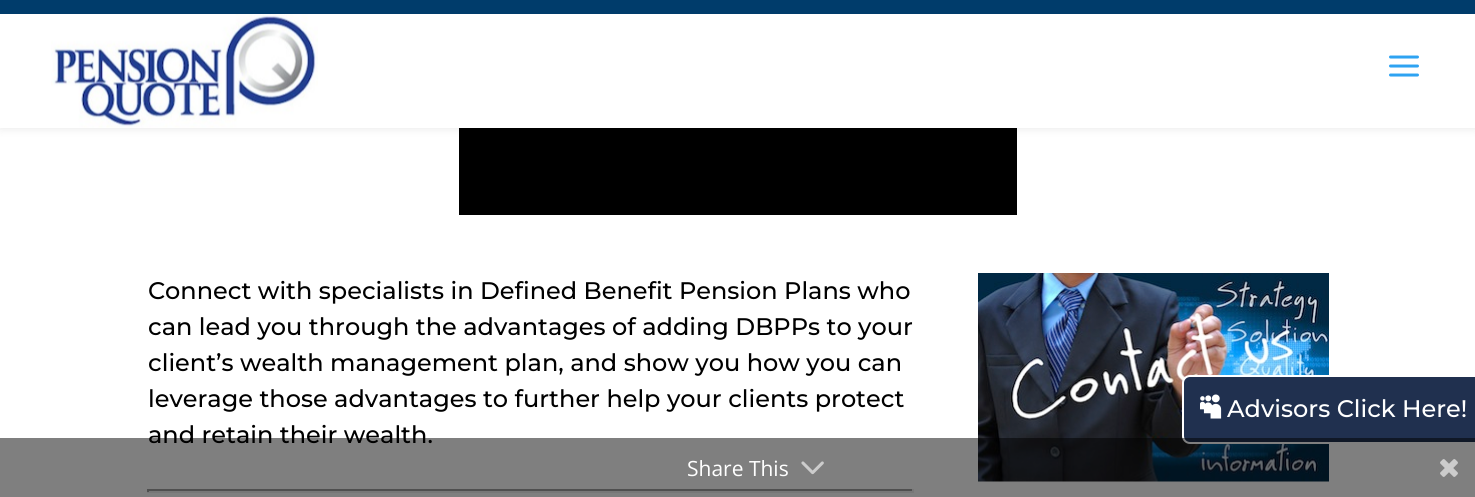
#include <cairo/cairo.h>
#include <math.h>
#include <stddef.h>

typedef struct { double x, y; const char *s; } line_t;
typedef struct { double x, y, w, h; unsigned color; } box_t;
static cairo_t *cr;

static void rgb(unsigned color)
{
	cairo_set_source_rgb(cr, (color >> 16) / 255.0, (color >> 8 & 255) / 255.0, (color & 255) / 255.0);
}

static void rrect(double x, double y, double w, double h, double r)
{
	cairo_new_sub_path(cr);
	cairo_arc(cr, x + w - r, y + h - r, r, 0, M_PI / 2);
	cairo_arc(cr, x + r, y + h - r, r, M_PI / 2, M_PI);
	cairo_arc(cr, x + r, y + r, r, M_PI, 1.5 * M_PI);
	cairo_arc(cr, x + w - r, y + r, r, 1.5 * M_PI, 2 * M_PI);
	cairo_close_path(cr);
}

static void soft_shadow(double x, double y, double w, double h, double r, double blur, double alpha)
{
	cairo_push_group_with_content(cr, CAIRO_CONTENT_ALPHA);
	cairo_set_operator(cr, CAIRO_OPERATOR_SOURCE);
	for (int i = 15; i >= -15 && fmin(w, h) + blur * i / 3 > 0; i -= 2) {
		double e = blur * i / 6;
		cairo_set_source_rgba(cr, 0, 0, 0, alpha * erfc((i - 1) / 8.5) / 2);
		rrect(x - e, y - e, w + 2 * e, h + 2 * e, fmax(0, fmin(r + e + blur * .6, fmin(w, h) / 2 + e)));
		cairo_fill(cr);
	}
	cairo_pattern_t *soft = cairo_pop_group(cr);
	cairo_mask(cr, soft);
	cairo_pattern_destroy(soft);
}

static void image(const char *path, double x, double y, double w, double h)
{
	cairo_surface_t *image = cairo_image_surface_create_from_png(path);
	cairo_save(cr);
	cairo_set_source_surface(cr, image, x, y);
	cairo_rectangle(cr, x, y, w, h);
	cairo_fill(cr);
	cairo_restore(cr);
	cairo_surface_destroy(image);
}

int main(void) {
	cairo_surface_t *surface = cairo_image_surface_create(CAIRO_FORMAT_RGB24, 1475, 497);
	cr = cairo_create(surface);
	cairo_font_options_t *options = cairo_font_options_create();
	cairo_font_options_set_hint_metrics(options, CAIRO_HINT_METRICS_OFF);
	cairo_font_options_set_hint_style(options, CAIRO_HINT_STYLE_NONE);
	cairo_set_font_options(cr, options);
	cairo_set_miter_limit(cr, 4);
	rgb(0xffffff);
	cairo_paint(cr);
	rgb(0x000000);
	cairo_rectangle(cr, 459, 128, 558, 87);
	cairo_fill(cr);
	rgb(0x000000);
	soft_shadow(0, 14, 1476, 114, 0, 5, 0.1);
	rgb(0xffffff);
	cairo_rectangle(cr, 0, 14, 1475, 114);
	cairo_fill(cr);
	image("img/1.png", 51, 14, 267, 114);
	image("img/2.png", 1389, 55, 30, 22);
	{
		static const box_t items[] = {
			{0, 0, 1475, 14, 0x003c6b},
			{147, 489, 767, 2, 0x9f9f9f},
			{912, 489, 2, 3, 0xeeeeee},
			{147, 491, 767, 2, 0xeeeeee},
			{147, 489, 2, 3, 0x9f9f9f},
		};
		for (size_t i = 0; i < sizeof items / sizeof *items; i++) {
			rgb(items[i].color);
			cairo_rectangle(cr, items[i].x, items[i].y, items[i].w, items[i].h);
			cairo_fill(cr);
		}
	}
	image("img/3.png", 978, 273, 351, 209);
	rgb(0x20304f);
	rrect(1183, 376, 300, 67, 7);
	cairo_fill_preserve(cr);
	rgb(0xffffff);
	cairo_stroke(cr);
	image("img/4.png", 1200, 394, 22, 25);
	cairo_select_font_face(cr, "Montserrat Thin", CAIRO_FONT_SLANT_NORMAL, CAIRO_FONT_WEIGHT_NORMAL);
	cairo_set_font_size(cr, 24);
	rgb(0x000000);
	{
		static const line_t items[] = {
			{148, 299, "Connect with specialists in Defined Benefit Pension Plans who"},
			{148, 335, "can lead you through the advantages of adding DBPPs to your"},
			{148, 371, "client’s wealth management plan, and show you how you can"},
			{148, 407, "leverage those advantages to further help your clients protect"},
			{148, 443, "and retain their wealth."},
		};
		for (size_t i = 0; i < sizeof items / sizeof *items; i++) {
			cairo_move_to(cr, items[i].x, items[i].y);
			cairo_show_text(cr, items[i].s);
		}
	}
	rgb(0xffffff);
	cairo_move_to(cr, 1227, 417);
	cairo_show_text(cr, "Advisors Click Here!");
	cairo_set_source_rgba(cr, 0, 0, 0, 0.5);
	cairo_rectangle(cr, 0, 438, 1475, 59);
	cairo_fill(cr);
	cairo_select_font_face(cr, "Open Sans", CAIRO_FONT_SLANT_NORMAL, CAIRO_FONT_WEIGHT_NORMAL);
	cairo_set_font_size(cr, 21);
	rgb(0xffffff);
	cairo_move_to(cr, 687, 476);
	cairo_show_text(cr, "Share This");
	image("img/5.png", 801, 461, 23, 14);
	image("img/6.png", 1440, 459, 18, 18);
	cairo_surface_write_to_png(surface, "page.png");
	cairo_font_options_destroy(options);
	cairo_destroy(cr);
	cairo_surface_destroy(surface);
	return 0;
}
